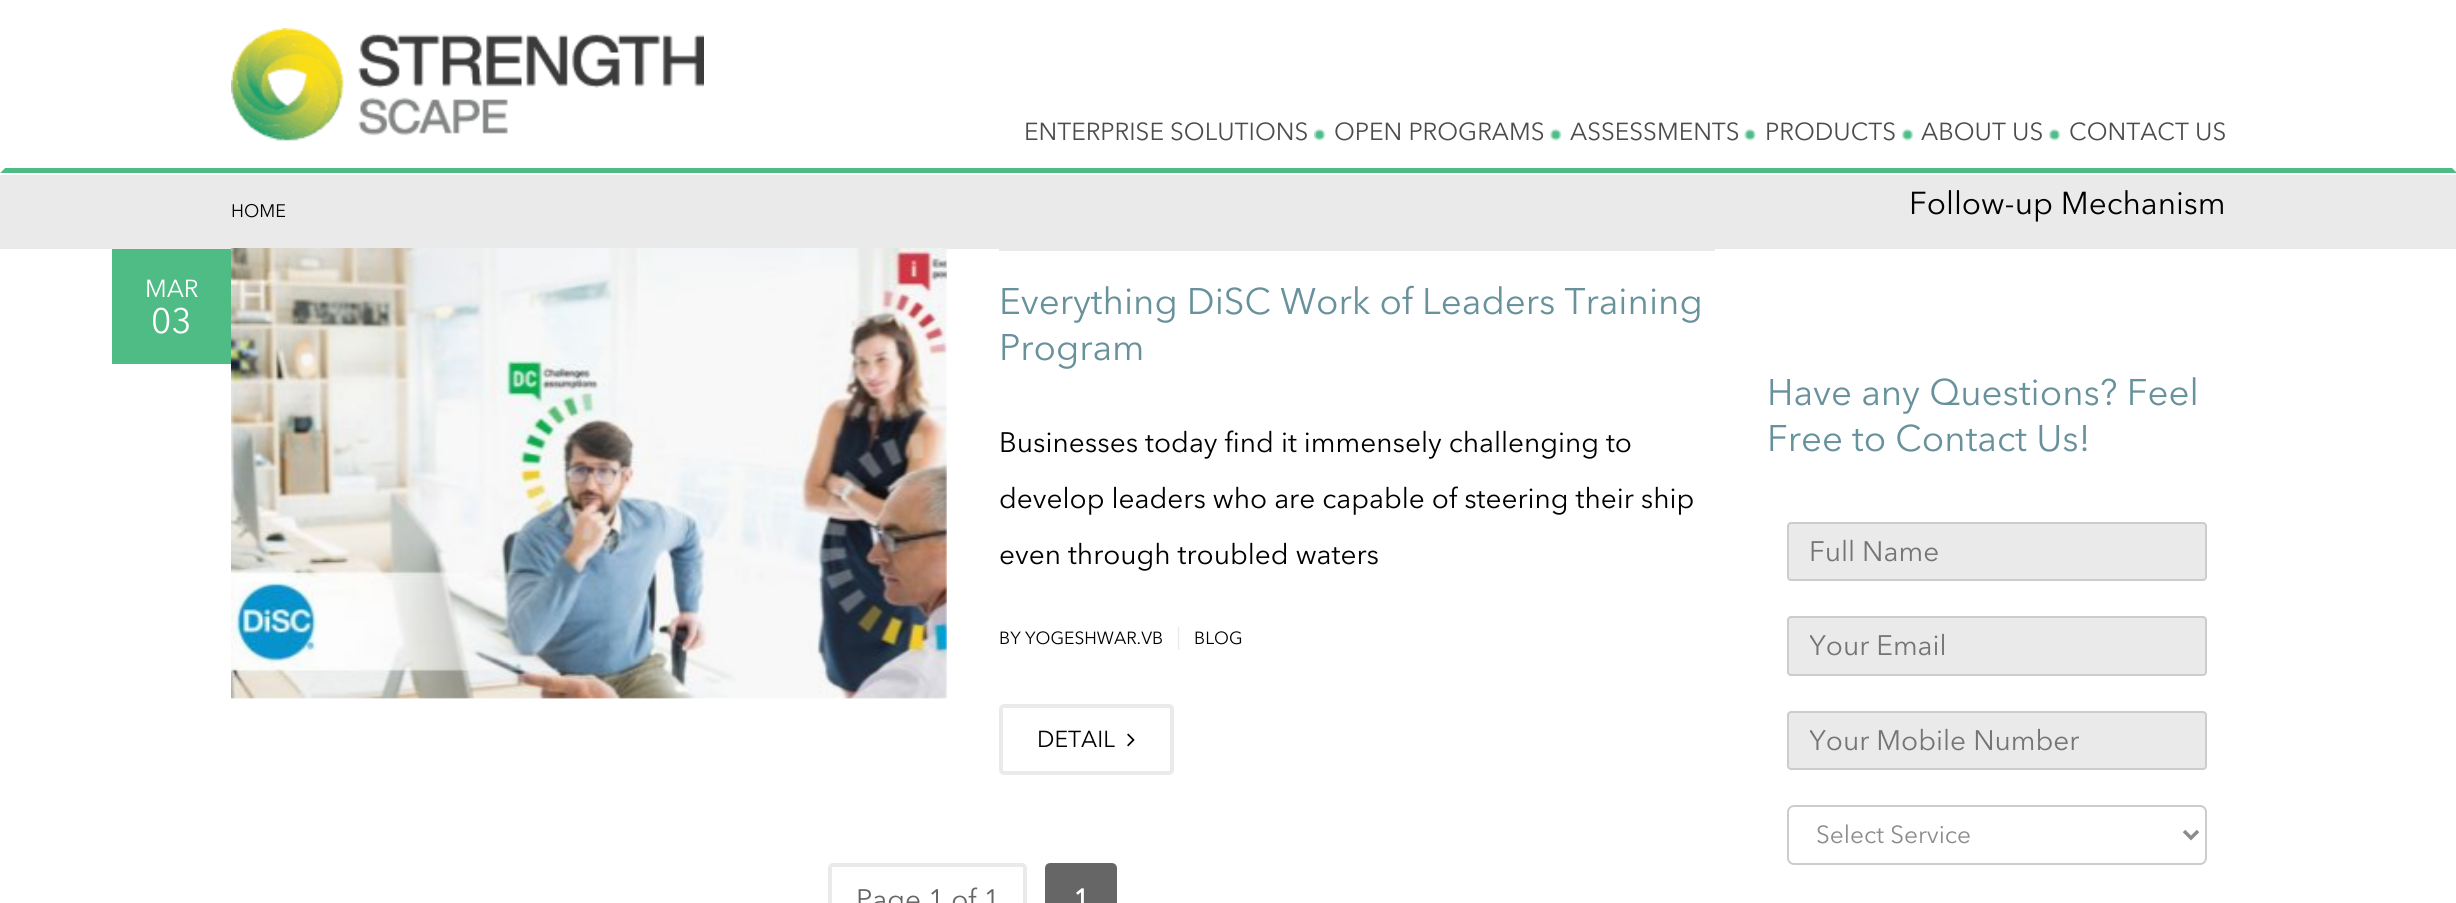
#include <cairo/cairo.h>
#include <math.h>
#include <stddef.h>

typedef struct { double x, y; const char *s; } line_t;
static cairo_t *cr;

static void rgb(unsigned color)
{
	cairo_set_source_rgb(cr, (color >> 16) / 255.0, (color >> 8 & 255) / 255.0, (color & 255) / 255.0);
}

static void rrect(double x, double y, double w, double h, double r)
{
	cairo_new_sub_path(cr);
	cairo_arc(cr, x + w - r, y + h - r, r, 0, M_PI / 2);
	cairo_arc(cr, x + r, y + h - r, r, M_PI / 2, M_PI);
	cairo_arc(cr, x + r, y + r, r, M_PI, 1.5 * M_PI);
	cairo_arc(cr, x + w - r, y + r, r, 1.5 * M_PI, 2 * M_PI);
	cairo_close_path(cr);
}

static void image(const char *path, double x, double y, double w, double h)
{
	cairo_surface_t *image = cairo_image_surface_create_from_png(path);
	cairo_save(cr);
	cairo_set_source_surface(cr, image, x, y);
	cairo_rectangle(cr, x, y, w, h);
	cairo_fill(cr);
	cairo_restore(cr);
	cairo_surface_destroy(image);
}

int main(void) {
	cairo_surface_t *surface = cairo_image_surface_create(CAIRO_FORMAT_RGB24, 2456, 903);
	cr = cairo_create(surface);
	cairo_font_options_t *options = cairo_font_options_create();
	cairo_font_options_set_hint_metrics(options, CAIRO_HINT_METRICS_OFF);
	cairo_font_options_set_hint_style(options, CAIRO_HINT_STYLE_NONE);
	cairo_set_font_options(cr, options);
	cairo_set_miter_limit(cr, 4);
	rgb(0xffffff);
	cairo_paint(cr);
	rgb(0x4fbc85);
	cairo_new_path(cr);
	cairo_move_to(cr, 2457, 173);
	cairo_line_to(cr, 0, 173);
	cairo_line_to(cr, 5, 168);
	cairo_line_to(cr, 2452, 168);
	cairo_close_path(cr);
	cairo_fill(cr);
	cairo_set_source_rgba(cr, 1, 1, 1, 0.75);
	cairo_new_path(cr);
	cairo_move_to(cr, 0, 173);
	cairo_line_to(cr, 0, 61);
	cairo_line_to(cr, 5, 66);
	cairo_line_to(cr, 5, 168);
	cairo_close_path(cr);
	cairo_fill(cr);
	image("img/1.png", 231, 28, 473, 113);
	image("img/2.png", 1314, 128, 12, 13);
	image("img/3.png", 1550, 128, 12, 13);
	image("img/4.png", 1744, 128, 12, 13);
	image("img/5.png", 1902, 128, 12, 13);
	image("img/5.png", 2049, 128, 12, 13);
	rgb(0xeaeaea);
	cairo_rectangle(cr, 0, 175, 2456, 74);
	cairo_fill(cr);
	rgb(0x4fbc85);
	cairo_rectangle(cr, 112, 249, 119, 115);
	cairo_fill(cr);
	image("img/6.png", 231, 248, 716, 451);
	rgb(0xeaeaea);
	cairo_rectangle(cr, 999, 249, 716, 2);
	cairo_fill(cr);
	rrect(1001, 706, 171, 67, 3);
	cairo_set_line_width(cr, 4);
	cairo_stroke(cr);
	image("img/7.png", 1127, 733, 8, 14);
	rrect(830, 865, 195, 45, 3);
	cairo_stroke(cr);
	rgb(0x666666);
	rrect(1047, 865, 68, 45, 3);
	cairo_fill_preserve(cr);
	cairo_stroke(cr);
	rgb(0xeaeaea);
	rrect(1788, 523, 418, 57, 3);
	cairo_fill_preserve(cr);
	rgb(0xcccccc);
	cairo_set_line_width(cr, 2);
	cairo_stroke(cr);
	rgb(0xeaeaea);
	rrect(1788, 617, 418, 58, 3);
	cairo_fill_preserve(cr);
	rgb(0xcccccc);
	cairo_stroke(cr);
	rgb(0xeaeaea);
	rrect(1788, 712, 418, 57, 3);
	cairo_fill_preserve(cr);
	rgb(0xcccccc);
	cairo_stroke(cr);
	rrect(1788, 806, 418, 58, 6);
	cairo_stroke(cr);
	cairo_new_path(cr);
	cairo_move_to(cr, 2184, 831);
	cairo_line_to(cr, 2191, 838);
	cairo_line_to(cr, 2198, 831);
	rgb(0x8c8c8c);
	cairo_set_line_width(cr, 3.5);
	cairo_stroke(cr);
	cairo_select_font_face(cr, "Avenir Next", CAIRO_FONT_SLANT_NORMAL, CAIRO_FONT_WEIGHT_NORMAL);
	cairo_set_font_size(cr, 24.5);
	rgb(0x4c4c4d);
	{
		static const line_t items[] = {
			{1024, 140, "ENTERPRISE SOLUTIONS"},
			{1334, 140, "OPEN PROGRAMS"},
			{1570, 140, "ASSESSMENTS"},
			{1765, 140, "PRODUCTS"},
			{1921, 140, "ABOUT US"},
			{2069, 140, "CONTACT US"},
		};
		for (size_t i = 0; i < sizeof items / sizeof *items; i++) {
			cairo_move_to(cr, items[i].x, items[i].y);
			cairo_show_text(cr, items[i].s);
		}
	}
	cairo_set_font_size(cr, 18);
	rgb(0x000000);
	cairo_move_to(cr, 231, 217);
	cairo_show_text(cr, "HOME");
	cairo_set_font_size(cr, 31.5);
	cairo_move_to(cr, 1909, 214);
	cairo_show_text(cr, "Follow-up Mechanism");
	cairo_set_font_size(cr, 24.5);
	rgb(0xffffff);
	cairo_move_to(cr, 145, 297);
	cairo_show_text(cr, "MAR");
	cairo_set_font_size(cr, 35);
	cairo_move_to(cr, 151, 333);
	cairo_show_text(cr, "03");
	cairo_set_font_size(cr, 36.75);
	rgb(0x67919b);
	cairo_move_to(cr, 999, 314);
	cairo_show_text(cr, "Everything DiSC Work of Leaders Training");
	cairo_move_to(cr, 999, 360);
	cairo_show_text(cr, "Program");
	cairo_set_font_size(cr, 28);
	rgb(0x000000);
	{
		static const line_t items[] = {
			{999, 452, "Businesses today find it immensely challenging to"},
			{999, 508, "develop leaders who are capable of steering their ship"},
			{999, 564, "even through troubled waters"},
		};
		for (size_t i = 0; i < sizeof items / sizeof *items; i++) {
			cairo_move_to(cr, items[i].x, items[i].y);
			cairo_show_text(cr, items[i].s);
		}
	}
	cairo_set_font_size(cr, 17.5);
	cairo_move_to(cr, 999, 644);
	cairo_show_text(cr, "BY YOGESHWAR.VB");
	cairo_set_font_size(cr, 23);
	rgb(0xeaeaea);
	cairo_move_to(cr, 1176, 644);
	cairo_show_text(cr, "|");
	cairo_set_font_size(cr, 17.5);
	rgb(0x000000);
	cairo_move_to(cr, 1194, 644);
	cairo_show_text(cr, "BLOG");
	cairo_set_font_size(cr, 23);
	cairo_move_to(cr, 1037, 747);
	cairo_show_text(cr, "DETAIL");
	cairo_set_font_size(cr, 28);
	rgb(0x666666);
	cairo_move_to(cr, 856, 909);
	cairo_show_text(cr, "Page 1 of 1");
	cairo_select_font_face(cr, "Avenir Next", CAIRO_FONT_SLANT_NORMAL, CAIRO_FONT_WEIGHT_BOLD);
	rgb(0xffffff);
	cairo_move_to(cr, 1073, 909);
	cairo_show_text(cr, "1");
	cairo_select_font_face(cr, "Avenir Next", CAIRO_FONT_SLANT_NORMAL, CAIRO_FONT_WEIGHT_NORMAL);
	cairo_set_font_size(cr, 36.75);
	rgb(0x67919b);
	cairo_move_to(cr, 1767, 405);
	cairo_show_text(cr, "Have any Questions? Feel");
	cairo_move_to(cr, 1767, 451);
	cairo_show_text(cr, "Free to Contact Us!");
	cairo_set_font_size(cr, 28);
	rgb(0x757575);
	cairo_move_to(cr, 1809, 561);
	cairo_show_text(cr, "Full Name");
	cairo_save(cr);
	cairo_rectangle(cr, 1810, 630, 374, 33);
	cairo_clip(cr);
	cairo_move_to(cr, 1809, 655);
	cairo_show_text(cr, "Your Email");
	cairo_restore(cr);
	cairo_save(cr);
	cairo_rectangle(cr, 1810, 725, 374, 33);
	cairo_clip(cr);
	cairo_move_to(cr, 1809, 750);
	cairo_show_text(cr, "Your Mobile Number");
	cairo_restore(cr);
	cairo_set_font_size(cr, 24.5);
	rgb(0x8c8c8c);
	cairo_move_to(cr, 1816, 843);
	cairo_show_text(cr, "Select Service");
	cairo_surface_write_to_png(surface, "page.png");
	cairo_font_options_destroy(options);
	cairo_destroy(cr);
	cairo_surface_destroy(surface);
	return 0;
}
